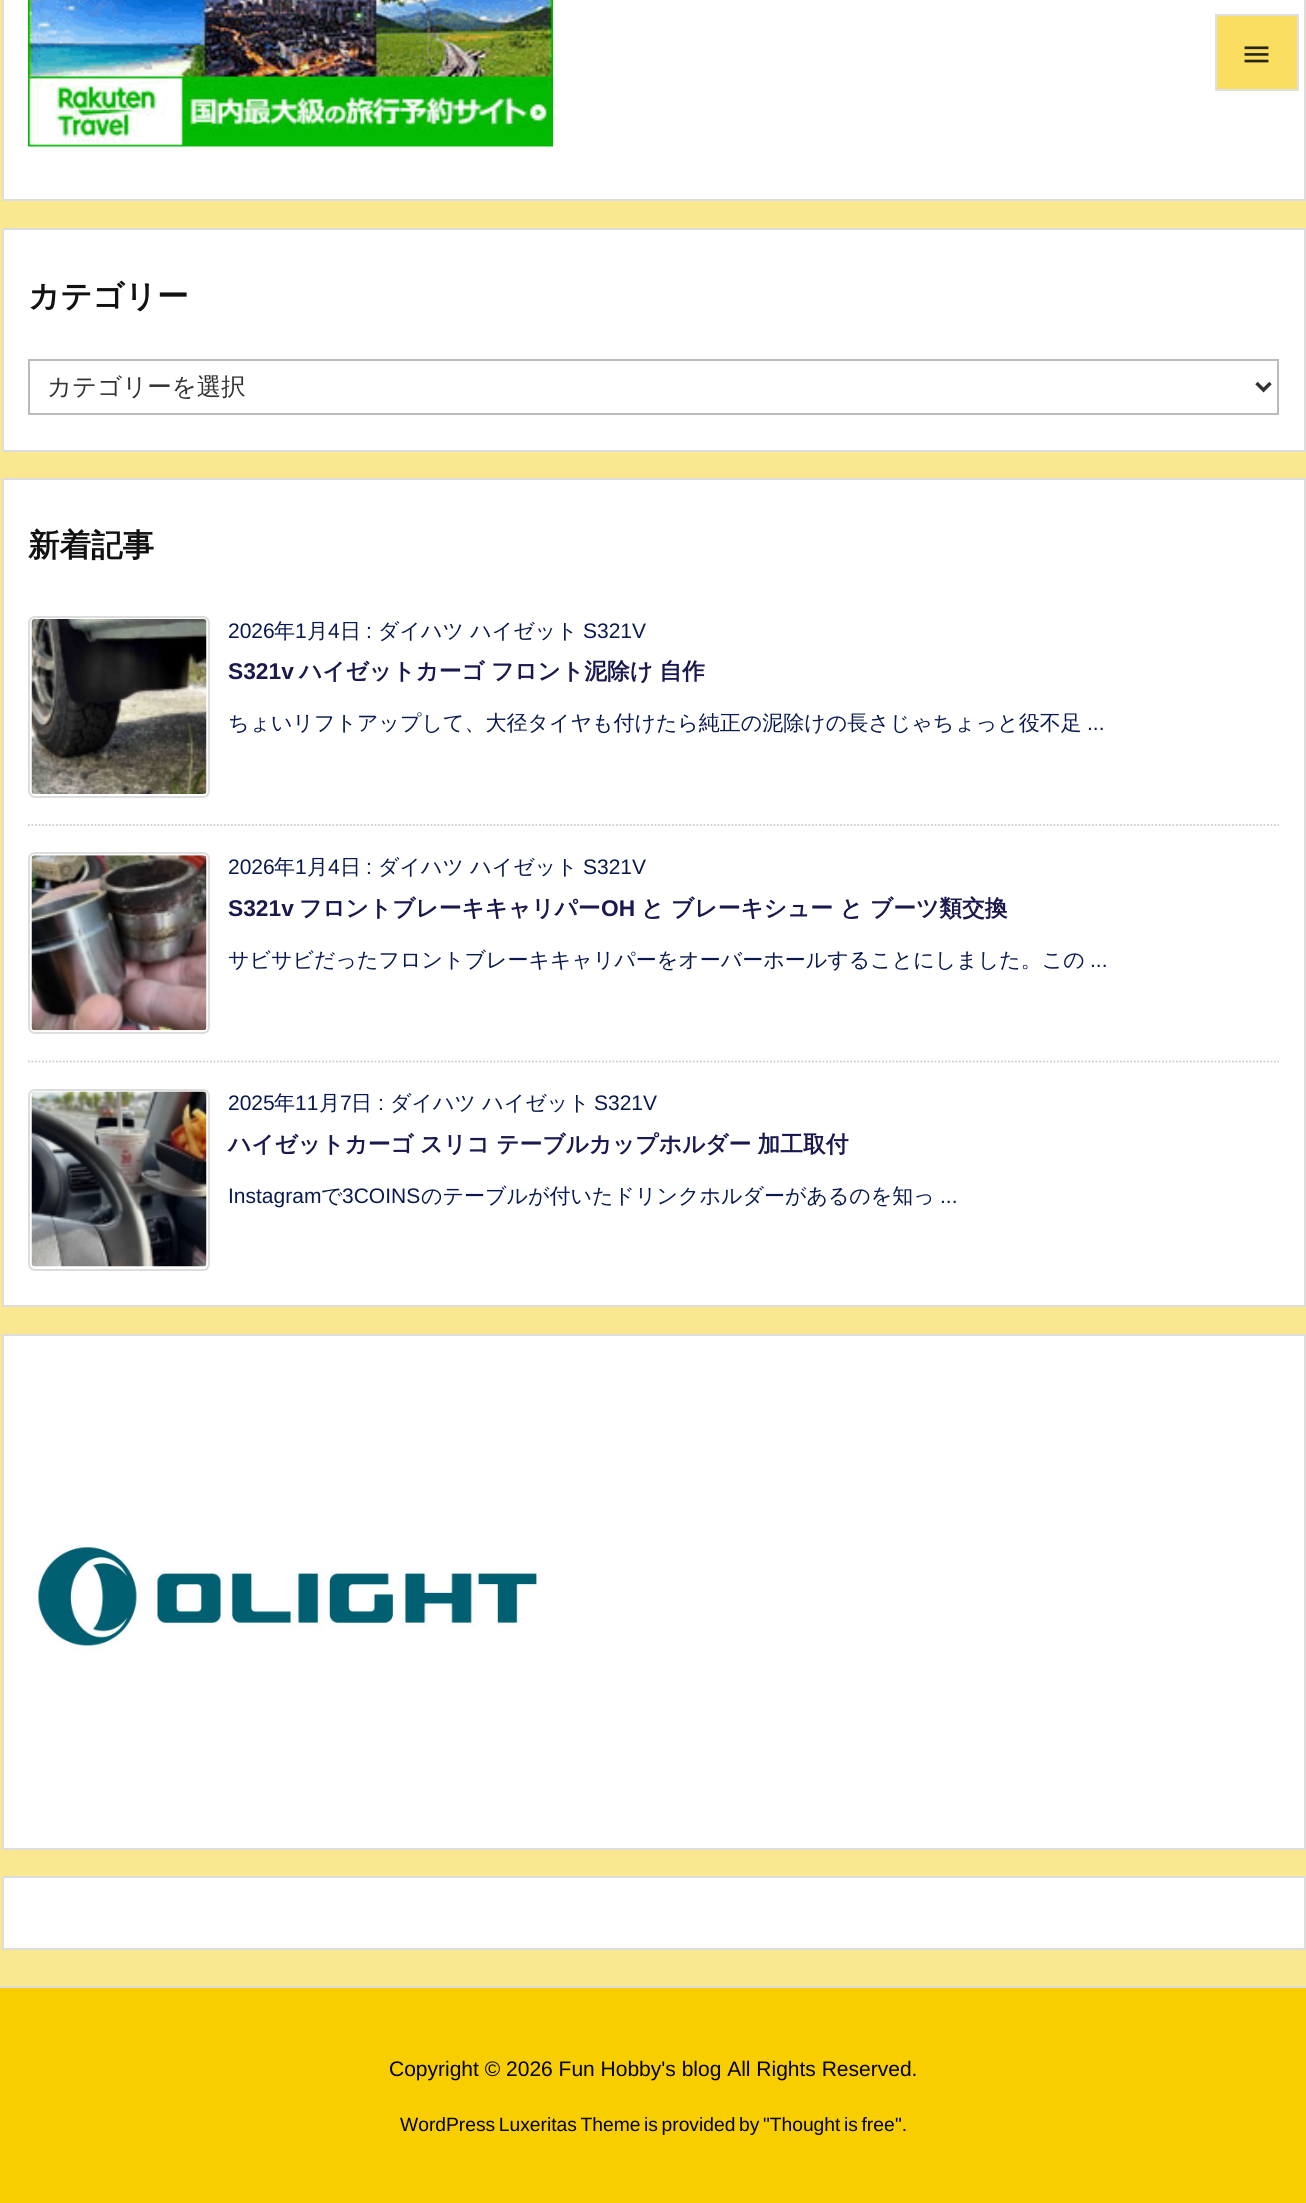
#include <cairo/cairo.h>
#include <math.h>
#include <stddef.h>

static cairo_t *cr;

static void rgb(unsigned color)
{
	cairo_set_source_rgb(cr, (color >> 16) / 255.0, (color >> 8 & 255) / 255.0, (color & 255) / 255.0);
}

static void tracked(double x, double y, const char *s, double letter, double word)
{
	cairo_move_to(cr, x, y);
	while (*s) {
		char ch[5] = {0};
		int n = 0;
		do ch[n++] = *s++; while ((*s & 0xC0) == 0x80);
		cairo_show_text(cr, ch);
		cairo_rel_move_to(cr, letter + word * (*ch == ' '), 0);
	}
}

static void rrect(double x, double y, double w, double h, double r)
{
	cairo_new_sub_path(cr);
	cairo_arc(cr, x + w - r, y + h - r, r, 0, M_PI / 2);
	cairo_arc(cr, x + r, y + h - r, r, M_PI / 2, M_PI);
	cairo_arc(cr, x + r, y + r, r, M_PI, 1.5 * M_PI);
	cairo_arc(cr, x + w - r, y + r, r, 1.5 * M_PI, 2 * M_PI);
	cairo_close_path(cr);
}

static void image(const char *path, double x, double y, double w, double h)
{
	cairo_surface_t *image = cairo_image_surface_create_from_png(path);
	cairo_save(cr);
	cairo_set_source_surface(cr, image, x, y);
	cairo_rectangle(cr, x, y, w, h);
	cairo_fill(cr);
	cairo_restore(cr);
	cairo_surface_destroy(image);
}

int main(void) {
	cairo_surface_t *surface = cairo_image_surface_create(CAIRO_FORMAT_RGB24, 1306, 2203);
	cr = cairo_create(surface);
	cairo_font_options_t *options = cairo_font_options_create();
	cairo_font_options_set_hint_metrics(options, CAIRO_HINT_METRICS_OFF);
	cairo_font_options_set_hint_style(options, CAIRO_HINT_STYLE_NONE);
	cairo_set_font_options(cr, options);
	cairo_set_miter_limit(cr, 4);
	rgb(0xf9e890);
	cairo_paint(cr);
	rgb(0xffffff);
	cairo_rectangle(cr, 3, -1, 1302, 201);
	cairo_fill_preserve(cr);
	rgb(0xdddddd);
	cairo_stroke(cr);
	rgb(0xfade5f);
	cairo_rectangle(cr, 1216, 15, 82, 75);
	cairo_fill_preserve(cr);
	rgb(0xe0e0e0);
	cairo_stroke(cr);
	image("img/1.png", 1244, 46, 25, 17);
	image("img/2.png", 28, 0, 525, 147);
	rgb(0xffffff);
	cairo_rectangle(cr, 3, 229, 1302, 222);
	cairo_fill_preserve(cr);
	rgb(0xdddddd);
	cairo_stroke(cr);
	cairo_rectangle(cr, 29, 360, 1249, 54);
	rgb(0xbbbbbb);
	cairo_stroke(cr);
	cairo_new_path(cr);
	cairo_move_to(cr, 1256.5, 383);
	cairo_line_to(cr, 1263.5, 390);
	cairo_line_to(cr, 1270.5, 383);
	rgb(0x333333);
	cairo_set_line_width(cr, 3.5);
	cairo_stroke(cr);
	rgb(0xffffff);
	cairo_rectangle(cr, 3, 479, 1302, 827);
	cairo_fill_preserve(cr);
	rgb(0xdddddd);
	cairo_set_line_width(cr, 2);
	cairo_stroke(cr);
	cairo_new_path(cr);
	cairo_move_to(cr, 28, 825);
	cairo_line_to(cr, 1279, 825);
	rgb(0xcccccc);
	cairo_set_line_width(cr, 1.8);
	cairo_set_dash(cr, (double[]){1.75, 1.75}, 2, 0);
	cairo_stroke(cr);
	rrect(29, 617, 180, 180, 6);
	rgb(0xdddddd);
	cairo_set_line_width(cr, 2);
	cairo_set_dash(cr, NULL, 0, 0);
	cairo_stroke(cr);
	image("img/3.png", 31, 619, 176, 175);
	cairo_new_path(cr);
	cairo_move_to(cr, 28, 1061.5);
	cairo_line_to(cr, 1279, 1061.5);
	rgb(0xcccccc);
	cairo_set_line_width(cr, 1.8);
	cairo_set_dash(cr, (double[]){1.75, 1.75}, 2, 0);
	cairo_stroke(cr);
	rrect(29, 853, 180, 180, 6);
	rgb(0xdddddd);
	cairo_set_line_width(cr, 2);
	cairo_set_dash(cr, NULL, 0, 0);
	cairo_stroke(cr);
	image("img/4.png", 31, 855, 176, 176);
	rrect(29, 1090, 180, 180, 6);
	cairo_stroke(cr);
	image("img/5.png", 31, 1091, 176, 176);
	rgb(0xffffff);
	cairo_rectangle(cr, 3, 1335, 1302, 514);
	cairo_fill_preserve(cr);
	rgb(0xdddddd);
	cairo_stroke(cr);
	image("img/6.png", 35, 1545, 504, 105);
	rgb(0xffffff);
	cairo_rectangle(cr, 3, 1877, 1302, 72);
	cairo_fill_preserve(cr);
	rgb(0xdddddd);
	cairo_stroke(cr);
	cairo_rectangle(cr, 0, 1986, 1306, 2);
	cairo_fill(cr);
	rgb(0xf9ce00);
	cairo_rectangle(cr, 0, 1988, 1306, 215);
	cairo_fill(cr);
	cairo_select_font_face(cr, "WenQuanYi Zen Hei", CAIRO_FONT_SLANT_NORMAL, CAIRO_FONT_WEIGHT_BOLD);
	cairo_set_font_size(cr, 31.5);
	rgb(0x111111);
	cairo_move_to(cr, 28, 307);
	cairo_show_text(cr, "カテゴリー");
	cairo_select_font_face(cr, "WenQuanYi Zen Hei Medium", CAIRO_FONT_SLANT_NORMAL, CAIRO_FONT_WEIGHT_NORMAL);
	cairo_set_font_size(cr, 24.5);
	rgb(0x333333);
	cairo_move_to(cr, 47, 395);
	cairo_show_text(cr, "カテゴリーを選択");
	cairo_select_font_face(cr, "WenQuanYi Zen Hei", CAIRO_FONT_SLANT_NORMAL, CAIRO_FONT_WEIGHT_BOLD);
	cairo_set_font_size(cr, 31.5);
	rgb(0x111111);
	cairo_move_to(cr, 28, 556);
	cairo_show_text(cr, "新着記事");
	cairo_select_font_face(cr, "Liberation Sans", CAIRO_FONT_SLANT_NORMAL, CAIRO_FONT_WEIGHT_NORMAL);
	cairo_set_font_size(cr, 21);
	rgb(0x09194f);
	cairo_move_to(cr, 228, 638);
	cairo_show_text(cr, "2026");
	cairo_select_font_face(cr, "WenQuanYi Zen Hei Medium", CAIRO_FONT_SLANT_NORMAL, CAIRO_FONT_WEIGHT_NORMAL);
	cairo_move_to(cr, 274, 638);
	cairo_show_text(cr, "年");
	cairo_select_font_face(cr, "Liberation Sans", CAIRO_FONT_SLANT_NORMAL, CAIRO_FONT_WEIGHT_NORMAL);
	cairo_move_to(cr, 295, 638);
	cairo_show_text(cr, "1");
	cairo_select_font_face(cr, "WenQuanYi Zen Hei Medium", CAIRO_FONT_SLANT_NORMAL, CAIRO_FONT_WEIGHT_NORMAL);
	cairo_move_to(cr, 307, 638);
	cairo_show_text(cr, "月");
	cairo_select_font_face(cr, "Liberation Sans", CAIRO_FONT_SLANT_NORMAL, CAIRO_FONT_WEIGHT_NORMAL);
	cairo_move_to(cr, 328, 638);
	cairo_show_text(cr, "4");
	cairo_select_font_face(cr, "WenQuanYi Zen Hei Medium", CAIRO_FONT_SLANT_NORMAL, CAIRO_FONT_WEIGHT_NORMAL);
	cairo_move_to(cr, 340, 638);
	cairo_show_text(cr, "日");
	cairo_select_font_face(cr, "Liberation Sans", CAIRO_FONT_SLANT_NORMAL, CAIRO_FONT_WEIGHT_NORMAL);
	cairo_move_to(cr, 366, 638);
	cairo_show_text(cr, ":");
	cairo_select_font_face(cr, "WenQuanYi Zen Hei Medium", CAIRO_FONT_SLANT_NORMAL, CAIRO_FONT_WEIGHT_NORMAL);
	cairo_move_to(cr, 378, 638);
	cairo_show_text(cr, "ダイハツ ハイゼット");
	cairo_select_font_face(cr, "Liberation Sans", CAIRO_FONT_SLANT_NORMAL, CAIRO_FONT_WEIGHT_NORMAL);
	cairo_move_to(cr, 583, 638);
	cairo_show_text(cr, "S321V");
	cairo_select_font_face(cr, "Liberation Sans", CAIRO_FONT_SLANT_NORMAL, CAIRO_FONT_WEIGHT_BOLD);
	cairo_set_font_size(cr, 22.75);
	rgb(0x19194f);
	cairo_move_to(cr, 228, 679);
	cairo_show_text(cr, "S321v");
	cairo_select_font_face(cr, "WenQuanYi Zen Hei", CAIRO_FONT_SLANT_NORMAL, CAIRO_FONT_WEIGHT_BOLD);
	tracked(299, 679, "ハイゼットカーゴ フロント泥除け 自作", 0, -0.5);
	cairo_select_font_face(cr, "WenQuanYi Zen Hei Medium", CAIRO_FONT_SLANT_NORMAL, CAIRO_FONT_WEIGHT_NORMAL);
	cairo_set_font_size(cr, 21);
	rgb(0x09194f);
	cairo_move_to(cr, 228, 730);
	cairo_show_text(cr, "ちょいリフトアップして、大径タイヤも付けたら純正の泥除けの長さじゃちょっと役不足");
	cairo_select_font_face(cr, "Liberation Sans", CAIRO_FONT_SLANT_NORMAL, CAIRO_FONT_WEIGHT_NORMAL);
	cairo_move_to(cr, 1087, 730);
	cairo_show_text(cr, "...");
	cairo_move_to(cr, 228, 874);
	cairo_show_text(cr, "2026");
	cairo_select_font_face(cr, "WenQuanYi Zen Hei Medium", CAIRO_FONT_SLANT_NORMAL, CAIRO_FONT_WEIGHT_NORMAL);
	cairo_move_to(cr, 274, 874);
	cairo_show_text(cr, "年");
	cairo_select_font_face(cr, "Liberation Sans", CAIRO_FONT_SLANT_NORMAL, CAIRO_FONT_WEIGHT_NORMAL);
	cairo_move_to(cr, 295, 874);
	cairo_show_text(cr, "1");
	cairo_select_font_face(cr, "WenQuanYi Zen Hei Medium", CAIRO_FONT_SLANT_NORMAL, CAIRO_FONT_WEIGHT_NORMAL);
	cairo_move_to(cr, 307, 874);
	cairo_show_text(cr, "月");
	cairo_select_font_face(cr, "Liberation Sans", CAIRO_FONT_SLANT_NORMAL, CAIRO_FONT_WEIGHT_NORMAL);
	cairo_move_to(cr, 328, 874);
	cairo_show_text(cr, "4");
	cairo_select_font_face(cr, "WenQuanYi Zen Hei Medium", CAIRO_FONT_SLANT_NORMAL, CAIRO_FONT_WEIGHT_NORMAL);
	cairo_move_to(cr, 340, 874);
	cairo_show_text(cr, "日");
	cairo_select_font_face(cr, "Liberation Sans", CAIRO_FONT_SLANT_NORMAL, CAIRO_FONT_WEIGHT_NORMAL);
	cairo_move_to(cr, 366, 874);
	cairo_show_text(cr, ":");
	cairo_select_font_face(cr, "WenQuanYi Zen Hei Medium", CAIRO_FONT_SLANT_NORMAL, CAIRO_FONT_WEIGHT_NORMAL);
	cairo_move_to(cr, 378, 874);
	cairo_show_text(cr, "ダイハツ ハイゼット");
	cairo_select_font_face(cr, "Liberation Sans", CAIRO_FONT_SLANT_NORMAL, CAIRO_FONT_WEIGHT_NORMAL);
	cairo_move_to(cr, 583, 874);
	cairo_show_text(cr, "S321V");
	cairo_select_font_face(cr, "Liberation Sans", CAIRO_FONT_SLANT_NORMAL, CAIRO_FONT_WEIGHT_BOLD);
	cairo_set_font_size(cr, 22.75);
	rgb(0x19194f);
	cairo_move_to(cr, 228, 916);
	cairo_show_text(cr, "S321v");
	cairo_select_font_face(cr, "WenQuanYi Zen Hei", CAIRO_FONT_SLANT_NORMAL, CAIRO_FONT_WEIGHT_BOLD);
	cairo_move_to(cr, 299, 916);
	cairo_show_text(cr, "フロントブレーキキャリパー");
	cairo_select_font_face(cr, "Liberation Sans", CAIRO_FONT_SLANT_NORMAL, CAIRO_FONT_WEIGHT_BOLD);
	cairo_move_to(cr, 601, 916);
	cairo_show_text(cr, "OH");
	cairo_select_font_face(cr, "WenQuanYi Zen Hei", CAIRO_FONT_SLANT_NORMAL, CAIRO_FONT_WEIGHT_BOLD);
	cairo_move_to(cr, 641, 916);
	cairo_show_text(cr, "と ブレーキシュー と ブーツ類交換");
	cairo_select_font_face(cr, "WenQuanYi Zen Hei Medium", CAIRO_FONT_SLANT_NORMAL, CAIRO_FONT_WEIGHT_NORMAL);
	cairo_set_font_size(cr, 21);
	rgb(0x09194f);
	cairo_move_to(cr, 228, 967);
	cairo_show_text(cr, "サビサビだったフロントブレーキキャリパーをオーバーホールすることにしました。この");
	cairo_select_font_face(cr, "Liberation Sans", CAIRO_FONT_SLANT_NORMAL, CAIRO_FONT_WEIGHT_NORMAL);
	cairo_move_to(cr, 1090, 967);
	cairo_show_text(cr, "...");
	cairo_move_to(cr, 228, 1110);
	cairo_show_text(cr, "2025");
	cairo_select_font_face(cr, "WenQuanYi Zen Hei Medium", CAIRO_FONT_SLANT_NORMAL, CAIRO_FONT_WEIGHT_NORMAL);
	cairo_move_to(cr, 274, 1110);
	cairo_show_text(cr, "年");
	cairo_select_font_face(cr, "Liberation Sans", CAIRO_FONT_SLANT_NORMAL, CAIRO_FONT_WEIGHT_NORMAL);
	cairo_move_to(cr, 295, 1110);
	cairo_show_text(cr, "11");
	cairo_select_font_face(cr, "WenQuanYi Zen Hei Medium", CAIRO_FONT_SLANT_NORMAL, CAIRO_FONT_WEIGHT_NORMAL);
	cairo_move_to(cr, 319, 1110);
	cairo_show_text(cr, "月");
	cairo_select_font_face(cr, "Liberation Sans", CAIRO_FONT_SLANT_NORMAL, CAIRO_FONT_WEIGHT_NORMAL);
	cairo_move_to(cr, 340, 1110);
	cairo_show_text(cr, "7");
	cairo_select_font_face(cr, "WenQuanYi Zen Hei Medium", CAIRO_FONT_SLANT_NORMAL, CAIRO_FONT_WEIGHT_NORMAL);
	cairo_move_to(cr, 351, 1110);
	cairo_show_text(cr, "日");
	cairo_select_font_face(cr, "Liberation Sans", CAIRO_FONT_SLANT_NORMAL, CAIRO_FONT_WEIGHT_NORMAL);
	cairo_move_to(cr, 378, 1110);
	cairo_show_text(cr, ":");
	cairo_select_font_face(cr, "WenQuanYi Zen Hei Medium", CAIRO_FONT_SLANT_NORMAL, CAIRO_FONT_WEIGHT_NORMAL);
	cairo_move_to(cr, 390, 1110);
	cairo_show_text(cr, "ダイハツ ハイゼット");
	cairo_select_font_face(cr, "Liberation Sans", CAIRO_FONT_SLANT_NORMAL, CAIRO_FONT_WEIGHT_NORMAL);
	cairo_move_to(cr, 594, 1110);
	cairo_show_text(cr, "S321V");
	cairo_select_font_face(cr, "WenQuanYi Zen Hei", CAIRO_FONT_SLANT_NORMAL, CAIRO_FONT_WEIGHT_BOLD);
	cairo_set_font_size(cr, 22.75);
	rgb(0x19194f);
	tracked(228, 1152, "ハイゼットカーゴ スリコ テーブルカップホルダー 加工取付", 0, -0.5);
	cairo_select_font_face(cr, "Liberation Sans", CAIRO_FONT_SLANT_NORMAL, CAIRO_FONT_WEIGHT_NORMAL);
	cairo_set_font_size(cr, 21);
	rgb(0x09194f);
	cairo_move_to(cr, 228, 1203);
	cairo_show_text(cr, "Instagram");
	cairo_select_font_face(cr, "WenQuanYi Zen Hei Medium", CAIRO_FONT_SLANT_NORMAL, CAIRO_FONT_WEIGHT_NORMAL);
	cairo_move_to(cr, 321, 1203);
	cairo_show_text(cr, "で");
	cairo_select_font_face(cr, "Liberation Sans", CAIRO_FONT_SLANT_NORMAL, CAIRO_FONT_WEIGHT_NORMAL);
	cairo_move_to(cr, 342, 1203);
	cairo_show_text(cr, "3COINS");
	cairo_select_font_face(cr, "WenQuanYi Zen Hei Medium", CAIRO_FONT_SLANT_NORMAL, CAIRO_FONT_WEIGHT_NORMAL);
	cairo_move_to(cr, 421, 1203);
	cairo_show_text(cr, "のテーブルが付いたドリンクホルダーがあるのを知っ");
	cairo_select_font_face(cr, "Liberation Sans", CAIRO_FONT_SLANT_NORMAL, CAIRO_FONT_WEIGHT_NORMAL);
	cairo_move_to(cr, 940, 1203);
	cairo_show_text(cr, "...");
	rgb(0x000000);
	cairo_move_to(cr, 389, 2076);
	cairo_show_text(cr, "Copyright © 2026 Fun Hobby's blog All Rights Reserved.");
	cairo_set_font_size(cr, 19.25);
	tracked(400, 2131, "WordPress Luxeritas Theme is provided by \"Thought is free", 0, -1.75);
	cairo_move_to(cr, 895, 2131);
	cairo_show_text(cr, "\".");
	cairo_surface_write_to_png(surface, "page.png");
	cairo_font_options_destroy(options);
	cairo_destroy(cr);
	cairo_surface_destroy(surface);
	return 0;
}
